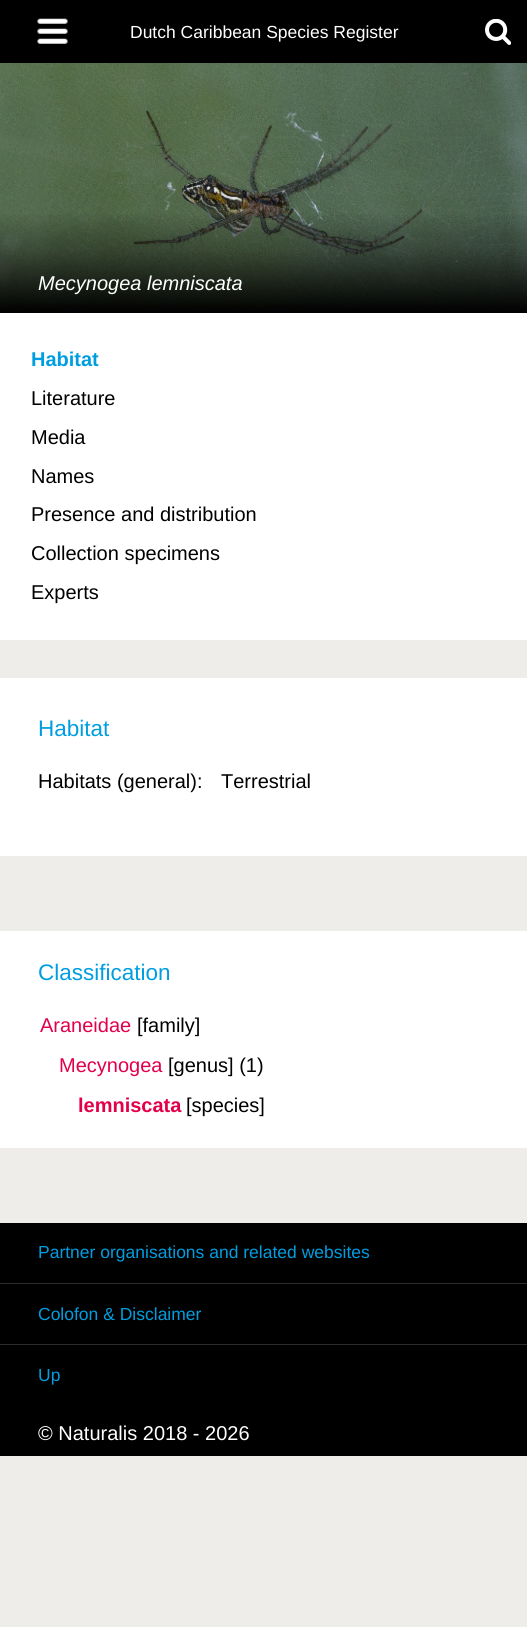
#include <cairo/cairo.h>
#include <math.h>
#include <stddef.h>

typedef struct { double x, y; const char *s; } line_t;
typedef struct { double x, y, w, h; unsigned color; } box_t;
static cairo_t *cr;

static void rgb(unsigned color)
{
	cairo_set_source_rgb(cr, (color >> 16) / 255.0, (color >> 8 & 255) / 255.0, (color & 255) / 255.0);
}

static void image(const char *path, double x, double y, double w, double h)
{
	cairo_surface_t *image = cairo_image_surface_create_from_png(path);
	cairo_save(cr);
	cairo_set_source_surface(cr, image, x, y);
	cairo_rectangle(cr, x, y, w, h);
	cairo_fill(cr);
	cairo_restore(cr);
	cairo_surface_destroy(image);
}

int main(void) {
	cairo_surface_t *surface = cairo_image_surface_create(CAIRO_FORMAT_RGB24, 527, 1627);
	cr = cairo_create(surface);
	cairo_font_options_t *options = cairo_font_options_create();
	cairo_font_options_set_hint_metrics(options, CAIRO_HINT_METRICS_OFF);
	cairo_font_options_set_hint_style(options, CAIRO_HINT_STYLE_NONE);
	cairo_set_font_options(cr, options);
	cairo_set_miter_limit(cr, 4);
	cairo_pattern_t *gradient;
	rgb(0xeeede9);
	cairo_paint(cr);
	rgb(0x000000);
	cairo_rectangle(cr, 0, 0, 527, 63);
	cairo_fill(cr);
	image("img/1.png", 37, 18, 31, 26);
	image("img/2.png", 485, 19, 26, 26);
	image("img/3.png", 0, 63, 527, 249);
	gradient = cairo_pattern_create_linear(264, 62, 264, 313);
	cairo_pattern_add_color_stop_rgba(gradient, 0.53, 0, 0, 0, 0);
	cairo_pattern_add_color_stop_rgba(gradient, 0.6, 0, 0, 0, 0.01);
	cairo_pattern_add_color_stop_rgba(gradient, 0.75, 0, 0, 0, 0.3);
	cairo_pattern_add_color_stop_rgba(gradient, 1, 0, 0, 0, 1);
	cairo_set_source(cr, gradient);
	cairo_pattern_destroy(gradient);
	cairo_rectangle(cr, 0, 214, 527, 99);
	cairo_fill(cr);
	{
		static const box_t items[] = {
			{0, 313, 527, 327, 0xffffff},
			{0, 678, 527, 178, 0xffffff},
			{0, 931, 527, 217, 0xffffff},
			{0, 1223, 527, 233, 0x000000},
			{0, 1283, 527, 1, 0x2d2d2d},
			{0, 1344, 527, 1, 0x2d2d2d},
		};
		for (size_t i = 0; i < sizeof items / sizeof *items; i++) {
			rgb(items[i].color);
			cairo_rectangle(cr, items[i].x, items[i].y, items[i].w, items[i].h);
			cairo_fill(cr);
		}
	}
	cairo_select_font_face(cr, "Liberation Sans", CAIRO_FONT_SLANT_NORMAL, CAIRO_FONT_WEIGHT_NORMAL);
	cairo_set_font_size(cr, 17.5);
	rgb(0xffffff);
	cairo_move_to(cr, 130, 38);
	cairo_show_text(cr, "Dutch Caribbean Species Register");
	cairo_select_font_face(cr, "Liberation Sans", CAIRO_FONT_SLANT_ITALIC, CAIRO_FONT_WEIGHT_NORMAL);
	cairo_set_font_size(cr, 20);
	cairo_move_to(cr, 38, 290);
	cairo_show_text(cr, "Mecynogea lemniscata");
	cairo_select_font_face(cr, "Liberation Sans", CAIRO_FONT_SLANT_NORMAL, CAIRO_FONT_WEIGHT_BOLD);
	rgb(0x009ee0);
	cairo_move_to(cr, 31, 366);
	cairo_show_text(cr, "Habitat");
	cairo_select_font_face(cr, "Liberation Sans", CAIRO_FONT_SLANT_NORMAL, CAIRO_FONT_WEIGHT_NORMAL);
	rgb(0x000000);
	{
		static const line_t items[] = {
			{31, 405, "Literature"},
			{31, 444, "Media"},
			{31, 483, "Names"},
			{31, 521, "Presence and distribution"},
			{31, 560, "Collection specimens"},
			{31, 599, "Experts"},
		};
		for (size_t i = 0; i < sizeof items / sizeof *items; i++) {
			cairo_move_to(cr, items[i].x, items[i].y);
			cairo_show_text(cr, items[i].s);
		}
	}
	cairo_set_font_size(cr, 22.5);
	rgb(0x009ee0);
	cairo_move_to(cr, 38, 736);
	cairo_show_text(cr, "Habitat");
	cairo_set_font_size(cr, 20);
	rgb(0x000000);
	cairo_move_to(cr, 38, 788);
	cairo_show_text(cr, "Habitats (general):");
	cairo_move_to(cr, 221, 788);
	cairo_show_text(cr, "Terrestrial");
	cairo_set_font_size(cr, 22.5);
	rgb(0x009ee0);
	cairo_move_to(cr, 38, 980);
	cairo_show_text(cr, "Classification");
	cairo_set_font_size(cr, 20);
	rgb(0xe3004a);
	cairo_move_to(cr, 40, 1032);
	cairo_show_text(cr, "Araneidae");
	rgb(0x000000);
	cairo_move_to(cr, 137, 1032);
	cairo_show_text(cr, "[family]");
	rgb(0xe3004a);
	cairo_move_to(cr, 59, 1072);
	cairo_show_text(cr, "Mecynogea");
	rgb(0x000000);
	cairo_move_to(cr, 168, 1072);
	cairo_show_text(cr, "[genus] (1)");
	cairo_select_font_face(cr, "Liberation Sans", CAIRO_FONT_SLANT_NORMAL, CAIRO_FONT_WEIGHT_BOLD);
	rgb(0xe3004a);
	cairo_move_to(cr, 78, 1112);
	cairo_show_text(cr, "lemniscata");
	cairo_select_font_face(cr, "Liberation Sans", CAIRO_FONT_SLANT_NORMAL, CAIRO_FONT_WEIGHT_NORMAL);
	rgb(0x000000);
	cairo_move_to(cr, 186, 1112);
	cairo_show_text(cr, "[species]");
	cairo_set_font_size(cr, 17.5);
	rgb(0x009ee0);
	{
		static const line_t items[] = {
			{38, 1258, "Partner organisations and related websites"},
			{38, 1320, "Colofon & Disclaimer"},
			{38, 1381, "Up"},
		};
		for (size_t i = 0; i < sizeof items / sizeof *items; i++) {
			cairo_move_to(cr, items[i].x, items[i].y);
			cairo_show_text(cr, items[i].s);
		}
	}
	cairo_set_font_size(cr, 20);
	rgb(0xffffff);
	cairo_move_to(cr, 38, 1440);
	cairo_show_text(cr, "© Naturalis 2018 - 2026");
	cairo_surface_write_to_png(surface, "page.png");
	cairo_font_options_destroy(options);
	cairo_destroy(cr);
	cairo_surface_destroy(surface);
	return 0;
}
